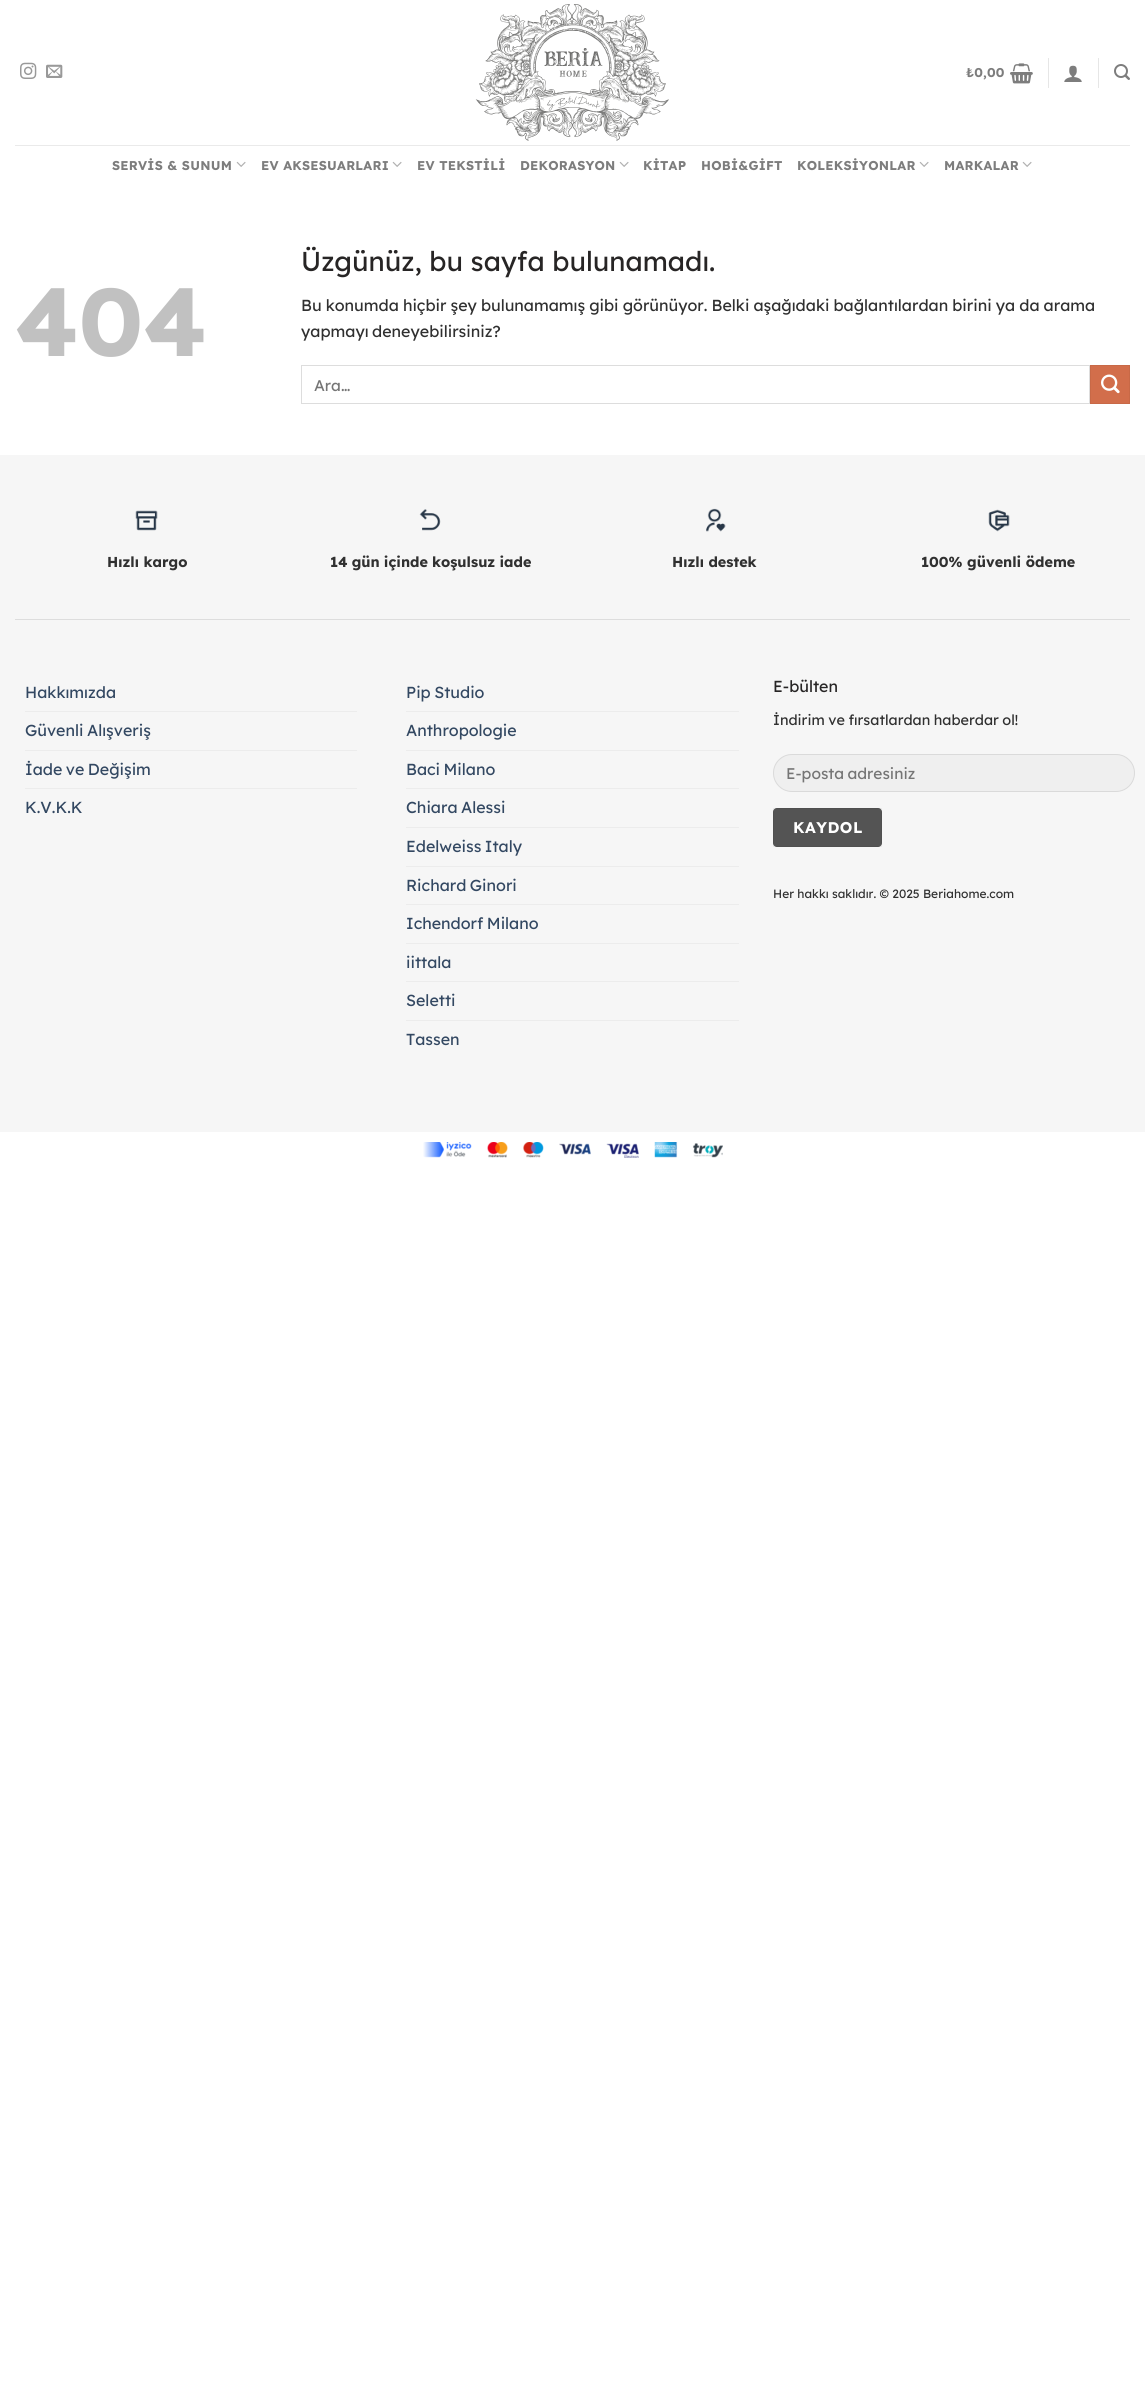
#include <cairo/cairo.h>
#include <math.h>
#include <stddef.h>

typedef struct { double x, y; const char *s; } line_t;
typedef struct { double x, y, w, h; unsigned color; } box_t;
static cairo_t *cr;

static void rgb(unsigned color)
{
	cairo_set_source_rgb(cr, (color >> 16) / 255.0, (color >> 8 & 255) / 255.0, (color & 255) / 255.0);
}

static void tracked(double x, double y, const char *s, double letter, double word)
{
	cairo_move_to(cr, x, y);
	while (*s) {
		char ch[5] = {0};
		int n = 0;
		do ch[n++] = *s++; while ((*s & 0xC0) == 0x80);
		cairo_show_text(cr, ch);
		cairo_rel_move_to(cr, letter + word * (*ch == ' '), 0);
	}
}

static void rrect(double x, double y, double w, double h, double r)
{
	cairo_new_sub_path(cr);
	cairo_arc(cr, x + w - r, y + h - r, r, 0, M_PI / 2);
	cairo_arc(cr, x + r, y + h - r, r, M_PI / 2, M_PI);
	cairo_arc(cr, x + r, y + r, r, M_PI, 1.5 * M_PI);
	cairo_arc(cr, x + w - r, y + r, r, 1.5 * M_PI, 2 * M_PI);
	cairo_close_path(cr);
}

static void image(const char *path, double x, double y, double w, double h)
{
	cairo_surface_t *image = cairo_image_surface_create_from_png(path);
	cairo_save(cr);
	cairo_set_source_surface(cr, image, x, y);
	cairo_rectangle(cr, x, y, w, h);
	cairo_fill(cr);
	cairo_restore(cr);
	cairo_surface_destroy(image);
}

int main(void) {
	cairo_surface_t *surface = cairo_image_surface_create(CAIRO_FORMAT_RGB24, 1145, 2381);
	cr = cairo_create(surface);
	cairo_font_options_t *options = cairo_font_options_create();
	cairo_font_options_set_hint_metrics(options, CAIRO_HINT_METRICS_OFF);
	cairo_font_options_set_hint_style(options, CAIRO_HINT_STYLE_NONE);
	cairo_set_font_options(cr, options);
	cairo_set_miter_limit(cr, 4);
	rgb(0xffffff);
	cairo_paint(cr);
	image("img/1.png", 20, 62, 17, 17);
	image("img/2.png", 46, 64, 17, 14);
	image("img/3.png", 475, 4, 194, 137);
	image("img/4.png", 1010, 63, 23, 21);
	rgb(0xe6e6e6);
	cairo_rectangle(cr, 1048, 58, 1, 30);
	cairo_fill(cr);
	image("img/5.png", 1064, 65, 18, 17);
	cairo_rectangle(cr, 1098, 58, 1, 30);
	cairo_fill(cr);
	image("img/6.png", 1114, 64, 16, 16);
	rgb(0xeaeaea);
	cairo_rectangle(cr, 15, 145, 1115, 1);
	cairo_fill(cr);
	image("img/7.png", 236, 161, 10, 6);
	image("img/7.png", 392, 161, 10, 6);
	image("img/7.png", 619, 161, 10, 6);
	image("img/7.png", 919, 161, 10, 6);
	image("img/7.png", 1022, 161, 10, 6);
	cairo_rectangle(cr, 301.5, 365.5, 788, 38);
	rgb(0xdddddd);
	cairo_set_line_width(cr, 1);
	cairo_stroke(cr);
	rgb(0xd26e4b);
	cairo_rectangle(cr, 1090.5, 365.5, 39, 38);
	cairo_fill_preserve(cr);
	rgb(0xc86947);
	cairo_stroke(cr);
	image("img/8.png", 1101, 374, 19, 20);
	rgb(0xf6f6f6);
	cairo_rectangle(cr, 0, 455, 1145, 677);
	cairo_fill(cr);
	image("img/9.png", 135, 510, 23, 21);
	image("img/10.png", 419, 509, 22, 22);
	image("img/11.png", 706, 508, 20, 24);
	image("img/12.png", 988, 509, 22, 23);
	{
		static const box_t items[] = {
			{15, 619, 1115, 1, 0xdddddd},
			{25, 711, 332, 1, 0xececec},
			{25, 750, 332, 1, 0xececec},
			{25, 788, 332, 1, 0xececec},
			{406, 711, 333, 1, 0xececec},
			{406, 750, 333, 1, 0xececec},
			{406, 788, 333, 1, 0xececec},
			{406, 827, 333, 1, 0xececec},
			{406, 866, 333, 1, 0xececec},
			{406, 904, 333, 1, 0xececec},
			{406, 943, 333, 1, 0xececec},
			{406, 981, 333, 1, 0xececec},
			{406, 1020, 333, 1, 0xececec},
		};
		for (size_t i = 0; i < sizeof items / sizeof *items; i++) {
			rgb(items[i].color);
			cairo_rectangle(cr, items[i].x, items[i].y, items[i].w, items[i].h);
			cairo_fill(cr);
		}
	}
	rgb(0xefefef);
	rrect(773.5, 754.5, 361, 37, 18.5);
	cairo_fill_preserve(cr);
	rgb(0xdadada);
	cairo_stroke(cr);
	rgb(0x545454);
	rrect(773, 808, 109, 39, 4);
	cairo_fill(cr);
	cairo_rectangle(cr, 773.5, 808.5, 108, 38);
	cairo_set_source_rgba(cr, 0, 0, 0, 0.05);
	cairo_stroke(cr);
	image("img/13.png", 423, 1142, 300, 16);
	cairo_select_font_face(cr, "Lexend", CAIRO_FONT_SLANT_NORMAL, CAIRO_FONT_WEIGHT_BOLD);
	cairo_set_font_size(cr, 12.75);
	rgb(0x7d7d7d);
	{
		static const line_t items[] = {
			{966, 77, "₺0,00"},
			{112, 170, "SERVİS & SUNUM"},
			{261, 170, "EV AKSESUARLARI"},
			{417, 170, "EV TEKSTİLİ"},
			{520, 170, "DEKORASYON"},
			{643, 170, "KİTAP"},
			{701, 170, "HOBİ&GİFT"},
			{797, 170, "KOLEKSİYONLAR"},
			{944, 170, "MARKALAR"},
		};
		for (size_t i = 0; i < sizeof items / sizeof *items; i++) {
			tracked(items[i].x, items[i].y, items[i].s, 0.25, 0);
		}
	}
	cairo_set_font_size(cr, 96);
	rgb(0xc1c1c1);
	cairo_move_to(cr, 15, 356);
	cairo_show_text(cr, "404");
	cairo_select_font_face(cr, "Lexend", CAIRO_FONT_SLANT_NORMAL, CAIRO_FONT_WEIGHT_NORMAL);
	cairo_set_font_size(cr, 27.25);
	rgb(0x272525);
	cairo_move_to(cr, 301, 271);
	cairo_show_text(cr, "Üzgünüz, bu sayfa bulunamadı.");
	cairo_set_font_size(cr, 16);
	rgb(0x303030);
	tracked(301, 311, "Bu konumda hiçbir şey bulunamamış gibi görünüyor. Belki aşağıdaki bağlantılardan birini ya da arama", 0, -0.4);
	tracked(301, 337, "yapmayı deneyebilirsiniz?", 0, -1);
	cairo_set_font_size(cr, 15.5);
	rgb(0x757575);
	cairo_move_to(cr, 314, 391);
	cairo_show_text(cr, "Ara…");
	cairo_select_font_face(cr, "Lexend", CAIRO_FONT_SLANT_NORMAL, CAIRO_FONT_WEIGHT_BOLD);
	cairo_set_font_size(cr, 14.4);
	rgb(0x303030);
	cairo_move_to(cr, 107, 567);
	cairo_show_text(cr, "Hızlı kargo");
	tracked(330, 567, "14 gün içinde koşulsuz iade", 0, -0.5);
	cairo_move_to(cr, 672, 567);
	cairo_show_text(cr, "Hızlı destek");
	cairo_move_to(cr, 921, 567);
	cairo_show_text(cr, "100% güvenli ödeme");
	cairo_select_font_face(cr, "Lexend", CAIRO_FONT_SLANT_NORMAL, CAIRO_FONT_WEIGHT_NORMAL);
	cairo_set_font_size(cr, 16);
	rgb(0x334862);
	cairo_move_to(cr, 25, 698);
	cairo_show_text(cr, "Hakkımızda");
	tracked(25, 736, "Güvenli Alışveriş", 0, -1);
	tracked(25, 775, "İade ve Değişim", 0, -1);
	cairo_move_to(cr, 25, 813);
	cairo_show_text(cr, "K.V.K.K");
	tracked(406, 698, "Pip Studio", 0, -1);
	cairo_move_to(cr, 406, 736);
	cairo_show_text(cr, "Anthropologie");
	{
		static const line_t items[] = {
			{406, 775, "Baci Milano"},
			{406, 813, "Chiara Alessi"},
			{406, 852, "Edelweiss Italy"},
			{406, 891, "Richard Ginori"},
			{406, 929, "Ichendorf Milano"},
		};
		for (size_t i = 0; i < sizeof items / sizeof *items; i++) {
			tracked(items[i].x, items[i].y, items[i].s, 0, -1);
		}
	}
	{
		static const line_t items[] = {
			{406, 968, "iittala"},
			{406, 1006, "Seletti"},
			{406, 1045, "Tassen"},
		};
		for (size_t i = 0; i < sizeof items / sizeof *items; i++) {
			cairo_move_to(cr, items[i].x, items[i].y);
			cairo_show_text(cr, items[i].s);
		}
	}
	rgb(0x272525);
	cairo_move_to(cr, 773, 692);
	cairo_show_text(cr, "E-bülten");
	cairo_set_font_size(cr, 14.4);
	rgb(0x303030);
	tracked(773, 725, "İndirim ve fırsatlardan haberdar ol!", 0, -0.5);
	cairo_set_font_size(cr, 15.5);
	rgb(0x757575);
	tracked(786, 779, "E-posta adresiniz", 0, -1);
	cairo_select_font_face(cr, "Lexend", CAIRO_FONT_SLANT_NORMAL, CAIRO_FONT_WEIGHT_BOLD);
	rgb(0xffffff);
	tracked(793, 833, "KAYDOL", 0.5, 0);
	cairo_select_font_face(cr, "Lexend", CAIRO_FONT_SLANT_NORMAL, CAIRO_FONT_WEIGHT_NORMAL);
	cairo_set_font_size(cr, 12);
	rgb(0x303030);
	cairo_move_to(cr, 773, 898);
	cairo_show_text(cr, "Her hakkı saklıdır. © 2025 Beriahome.com");
	cairo_surface_write_to_png(surface, "page.png");
	cairo_font_options_destroy(options);
	cairo_destroy(cr);
	cairo_surface_destroy(surface);
	return 0;
}
